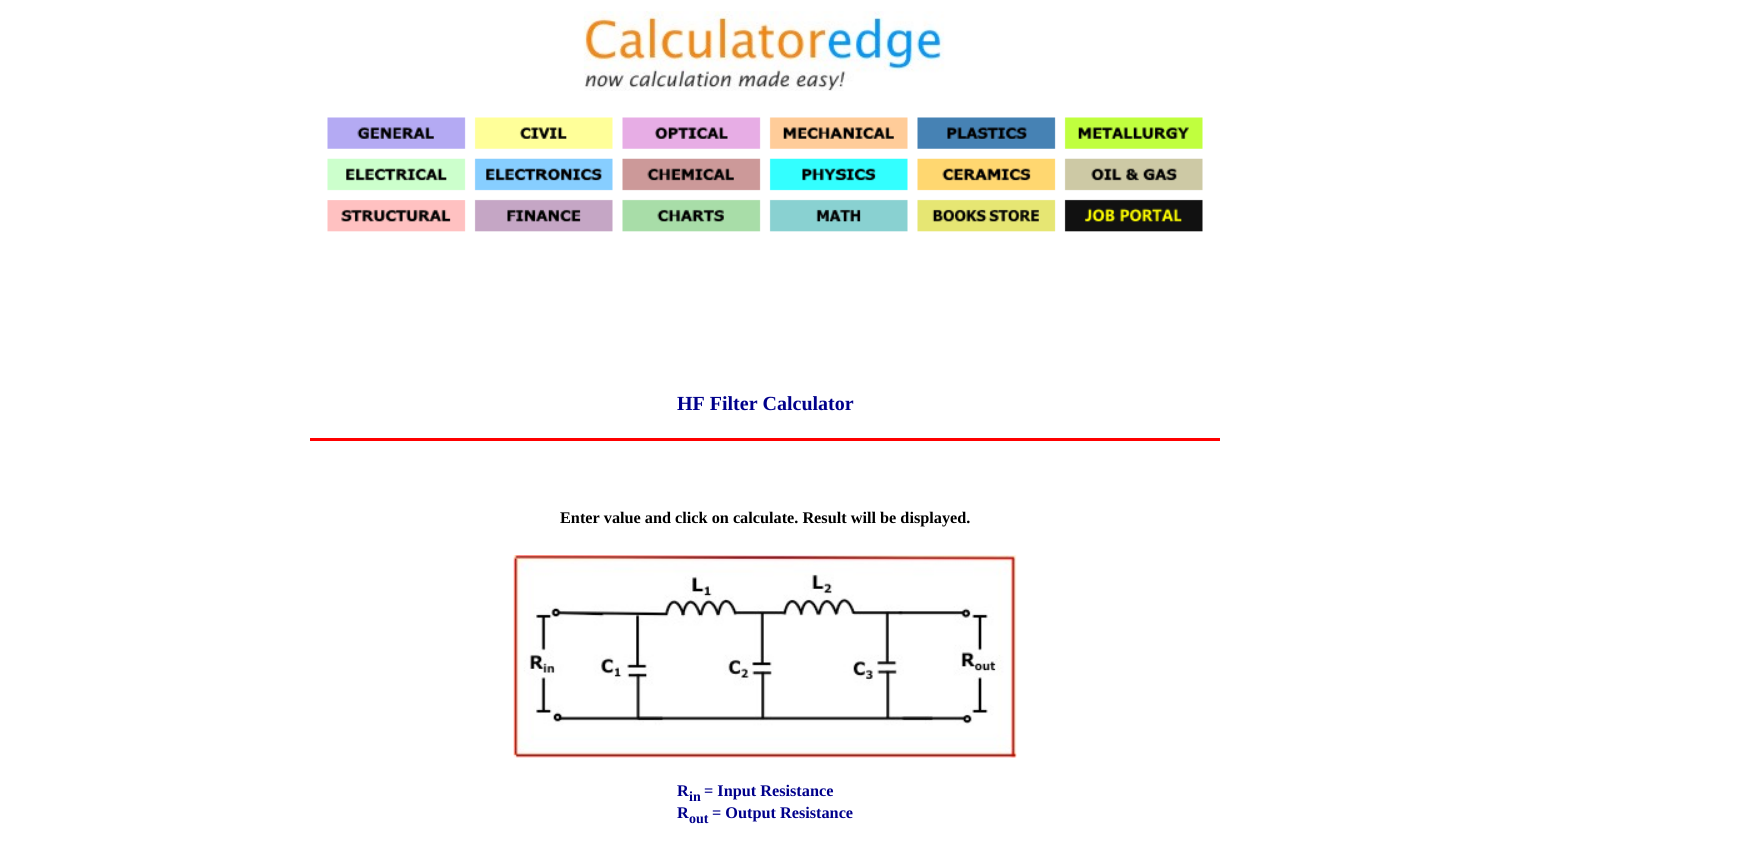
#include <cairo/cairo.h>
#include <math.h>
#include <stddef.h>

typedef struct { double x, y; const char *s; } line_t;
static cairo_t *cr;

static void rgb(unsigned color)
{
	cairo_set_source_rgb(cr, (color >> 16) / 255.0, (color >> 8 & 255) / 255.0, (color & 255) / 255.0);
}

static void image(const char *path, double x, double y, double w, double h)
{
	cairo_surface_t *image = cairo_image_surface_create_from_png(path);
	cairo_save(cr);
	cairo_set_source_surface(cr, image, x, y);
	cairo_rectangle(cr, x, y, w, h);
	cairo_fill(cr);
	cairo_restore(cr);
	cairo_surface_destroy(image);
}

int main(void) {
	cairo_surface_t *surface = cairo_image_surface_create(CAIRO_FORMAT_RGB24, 1739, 843);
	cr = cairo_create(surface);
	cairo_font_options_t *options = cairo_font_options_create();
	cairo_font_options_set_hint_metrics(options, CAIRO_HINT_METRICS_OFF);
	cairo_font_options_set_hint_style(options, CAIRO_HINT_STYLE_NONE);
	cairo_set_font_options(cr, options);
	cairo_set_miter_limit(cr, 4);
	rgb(0xffffff);
	cairo_paint(cr);
	image("img/1.png", 583, 11, 362, 80);
	image("img/2.png", 327, 117, 139, 32);
	image("img/3.png", 474, 117, 139, 32);
	image("img/4.png", 622, 117, 139, 32);
	image("img/5.png", 769, 117, 139, 32);
	image("img/6.png", 917, 117, 139, 32);
	image("img/7.png", 1064, 117, 139, 32);
	image("img/8.png", 327, 158, 139, 33);
	image("img/9.png", 474, 158, 139, 33);
	image("img/10.png", 622, 158, 139, 33);
	image("img/11.png", 769, 158, 139, 33);
	image("img/12.png", 917, 158, 139, 33);
	image("img/13.png", 1064, 158, 139, 33);
	image("img/14.png", 327, 200, 139, 32);
	image("img/15.png", 474, 199, 139, 33);
	image("img/16.png", 622, 199, 139, 33);
	image("img/17.png", 769, 199, 139, 33);
	image("img/18.png", 917, 199, 139, 33);
	image("img/19.png", 1064, 199, 139, 33);
	rgb(0xff0000);
	cairo_rectangle(cr, 310, 438, 910, 3);
	cairo_fill(cr);
	image("img/20.png", 513, 555, 504, 203);
	cairo_select_font_face(cr, "Liberation Serif", CAIRO_FONT_SLANT_NORMAL, CAIRO_FONT_WEIGHT_BOLD);
	cairo_set_font_size(cr, 20);
	rgb(0x00008b);
	cairo_move_to(cr, 677, 410);
	cairo_show_text(cr, "HF Filter Calculator");
	cairo_set_font_size(cr, 16.25);
	rgb(0x000000);
	cairo_move_to(cr, 560, 523);
	cairo_show_text(cr, "Enter value and click on calculate. Result will be displayed.");
	rgb(0x00008b);
	cairo_move_to(cr, 677, 796);
	cairo_show_text(cr, "R");
	cairo_set_font_size(cr, 14);
	cairo_move_to(cr, 689, 801);
	cairo_show_text(cr, "in");
	cairo_set_font_size(cr, 16.25);
	{
		static const line_t items[] = {
			{704, 796, "= Input Resistance"},
			{677, 818, "R"},
			{712, 818, "= Output Resistance"},
		};
		for (size_t i = 0; i < sizeof items / sizeof *items; i++) {
			cairo_move_to(cr, items[i].x, items[i].y);
			cairo_show_text(cr, items[i].s);
		}
	}
	cairo_set_font_size(cr, 14);
	cairo_move_to(cr, 689, 823);
	cairo_show_text(cr, "out");
	cairo_surface_write_to_png(surface, "page.png");
	cairo_font_options_destroy(options);
	cairo_destroy(cr);
	cairo_surface_destroy(surface);
	return 0;
}
